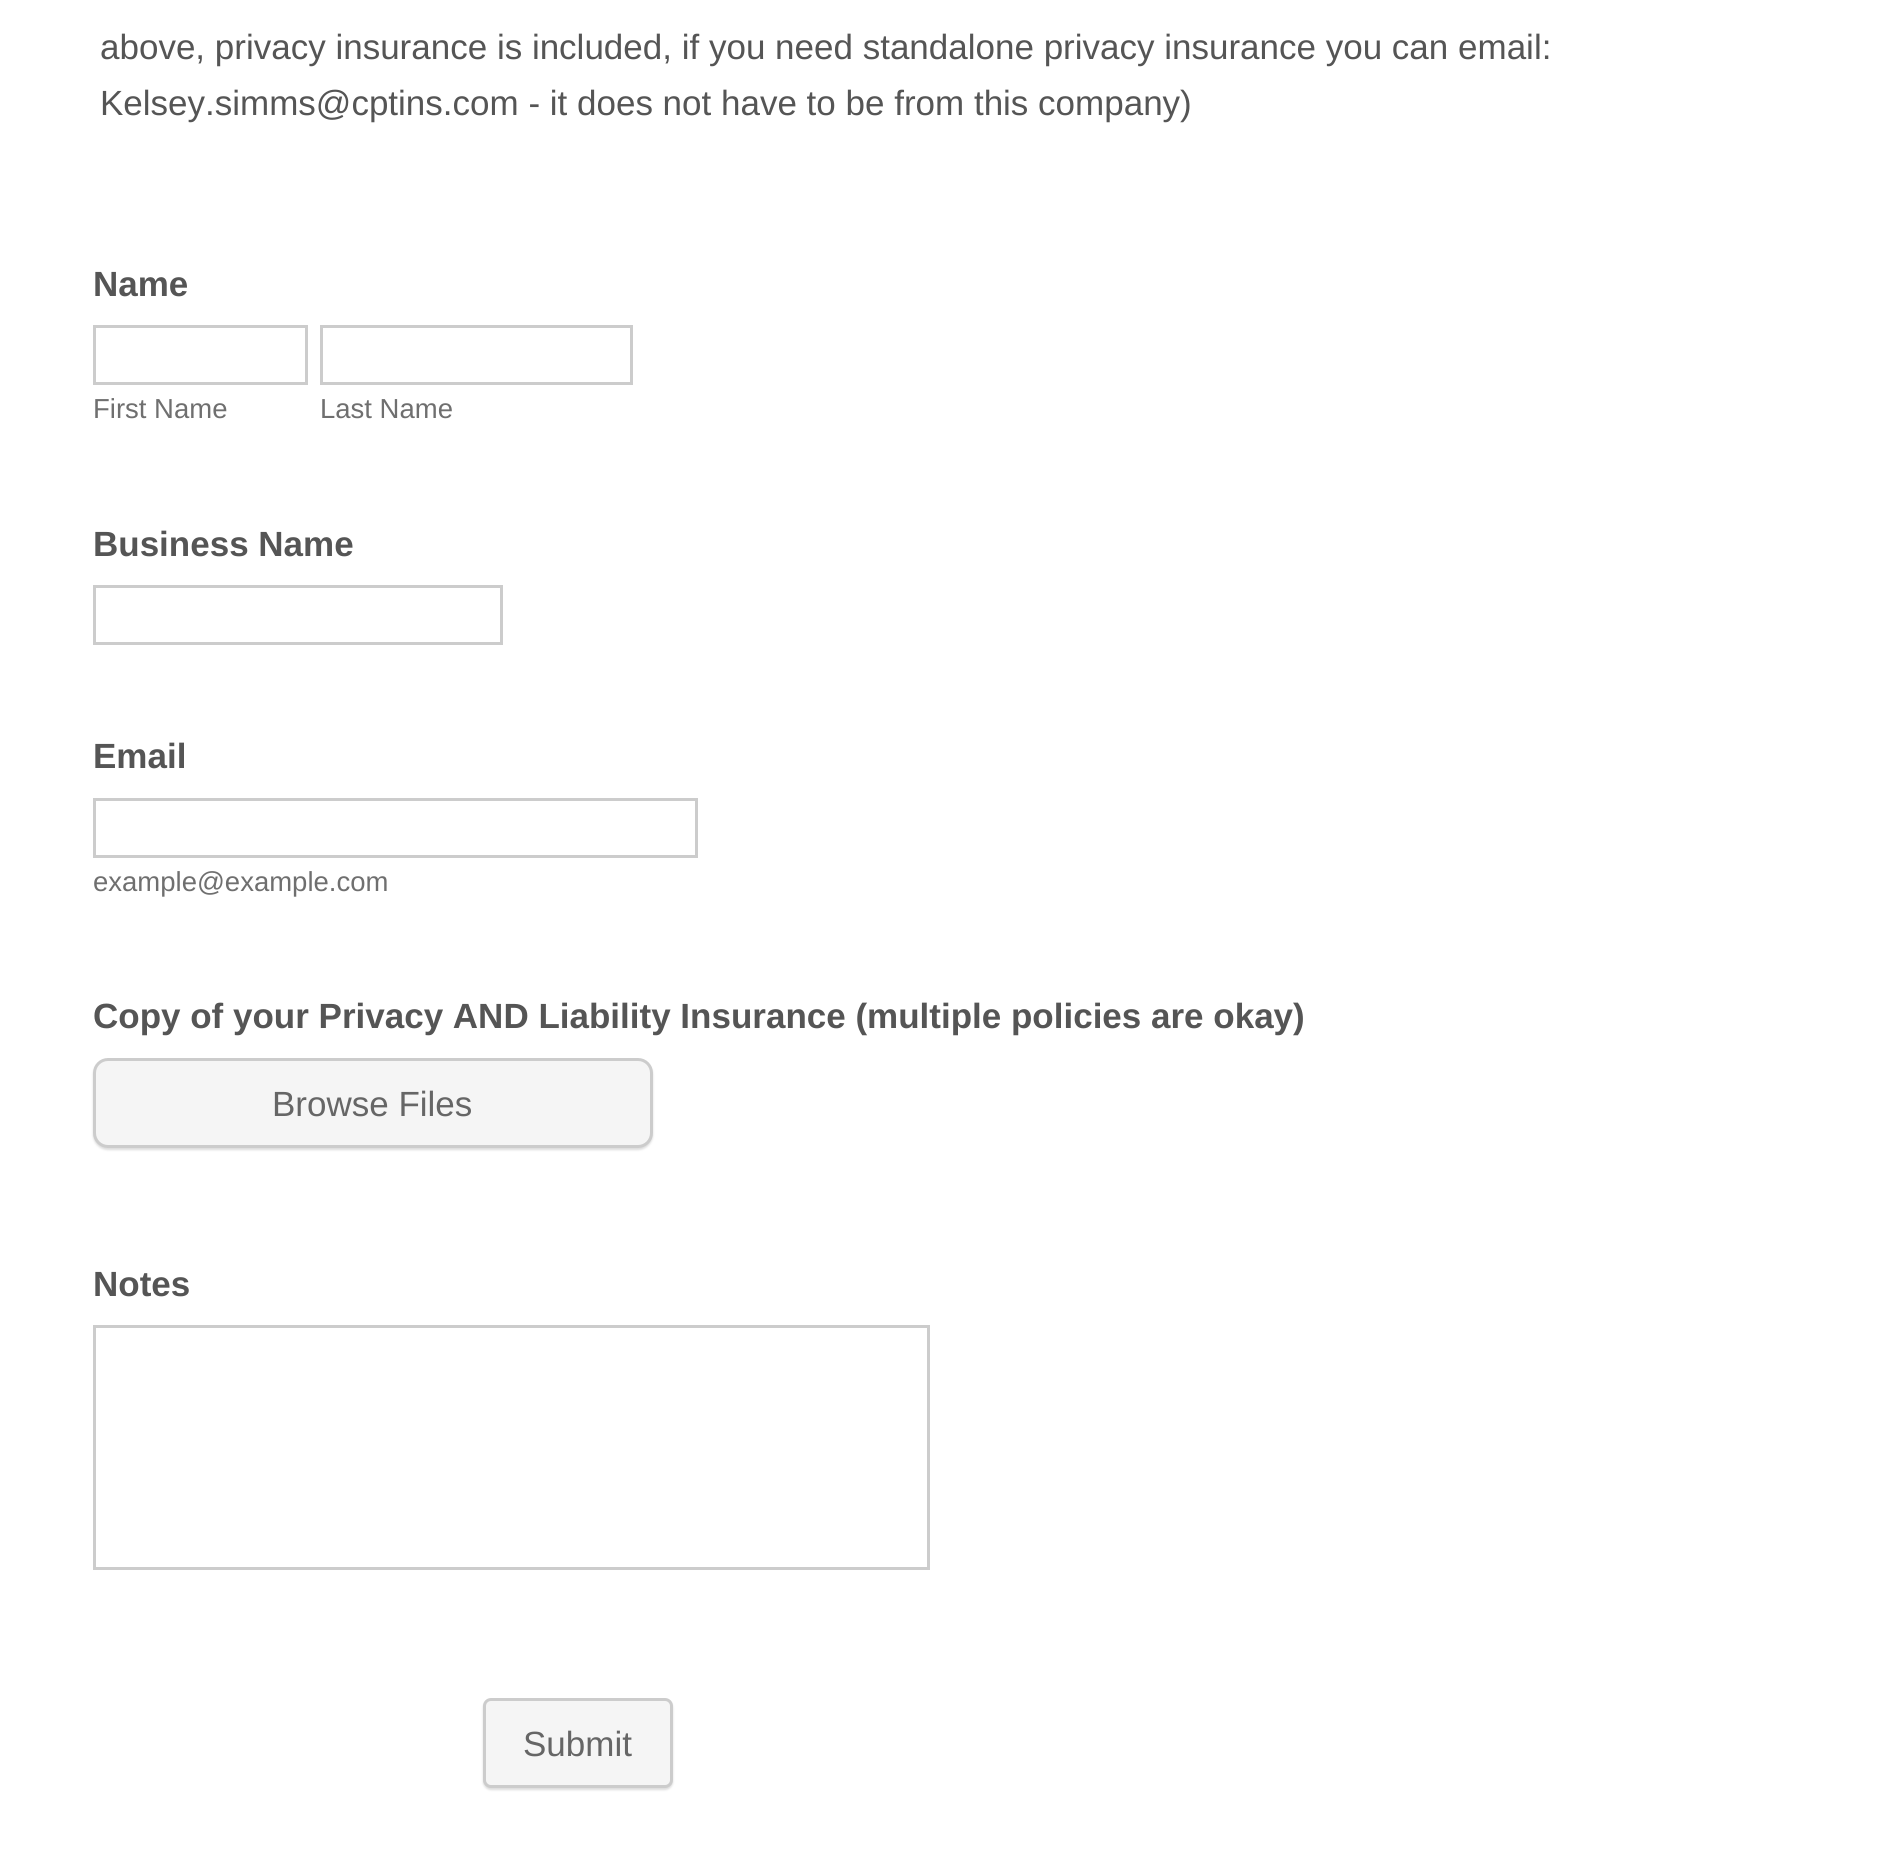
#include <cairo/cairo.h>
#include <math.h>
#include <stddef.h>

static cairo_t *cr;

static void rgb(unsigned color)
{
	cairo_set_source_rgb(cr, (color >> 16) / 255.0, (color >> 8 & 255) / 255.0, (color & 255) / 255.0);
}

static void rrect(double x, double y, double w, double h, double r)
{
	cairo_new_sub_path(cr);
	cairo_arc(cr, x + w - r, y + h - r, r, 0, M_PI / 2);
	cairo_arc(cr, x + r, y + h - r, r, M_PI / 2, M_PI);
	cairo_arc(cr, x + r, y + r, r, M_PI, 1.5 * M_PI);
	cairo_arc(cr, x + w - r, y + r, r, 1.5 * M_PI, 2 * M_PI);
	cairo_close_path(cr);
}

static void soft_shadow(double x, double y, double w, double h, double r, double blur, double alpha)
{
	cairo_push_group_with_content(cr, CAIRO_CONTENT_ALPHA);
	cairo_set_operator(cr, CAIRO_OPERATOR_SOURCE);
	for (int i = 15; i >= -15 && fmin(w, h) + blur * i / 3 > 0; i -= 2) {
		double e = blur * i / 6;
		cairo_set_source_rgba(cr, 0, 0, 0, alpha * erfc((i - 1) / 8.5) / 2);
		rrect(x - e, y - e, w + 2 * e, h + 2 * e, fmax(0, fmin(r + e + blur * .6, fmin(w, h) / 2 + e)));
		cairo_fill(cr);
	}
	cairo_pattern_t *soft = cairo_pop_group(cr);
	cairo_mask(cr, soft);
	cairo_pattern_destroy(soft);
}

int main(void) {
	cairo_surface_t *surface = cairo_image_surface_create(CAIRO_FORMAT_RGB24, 1888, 1850);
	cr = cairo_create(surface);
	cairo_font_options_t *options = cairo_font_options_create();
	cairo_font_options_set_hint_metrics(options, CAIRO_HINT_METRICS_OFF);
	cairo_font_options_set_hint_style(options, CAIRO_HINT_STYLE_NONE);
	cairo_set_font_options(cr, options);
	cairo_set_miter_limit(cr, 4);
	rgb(0xffffff);
	cairo_paint(cr);
	cairo_rectangle(cr, 94.5, 326.5, 212, 57);
	rgb(0xcccccc);
	cairo_set_line_width(cr, 3);
	cairo_stroke(cr);
	cairo_rectangle(cr, 321.5, 326.5, 310, 57);
	cairo_stroke(cr);
	cairo_rectangle(cr, 94.5, 586.5, 407, 57);
	cairo_stroke(cr);
	cairo_rectangle(cr, 94.5, 799.5, 602, 57);
	cairo_stroke(cr);
	rgb(0xdddddd);
	soft_shadow(93, 1060, 560, 90, 15, 1, 1);
	rgb(0xf5f5f5);
	rrect(94.5, 1059.5, 557, 87, 13.5);
	cairo_fill_preserve(cr);
	rgb(0xcccccc);
	cairo_stroke(cr);
	cairo_rectangle(cr, 94.5, 1326.5, 834, 242);
	cairo_stroke(cr);
	rgb(0xdddddd);
	soft_shadow(483, 1700, 190, 90, 8, 1, 1);
	rgb(0xf5f5f5);
	rrect(484.5, 1699.5, 187, 87, 6.5);
	cairo_fill_preserve(cr);
	rgb(0xcccccc);
	cairo_stroke(cr);
	cairo_select_font_face(cr, "Liberation Sans", CAIRO_FONT_SLANT_NORMAL, CAIRO_FONT_WEIGHT_NORMAL);
	cairo_set_font_size(cr, 35);
	rgb(0x555555);
	cairo_move_to(cr, 100, 59);
	cairo_show_text(cr, "above, privacy insurance is included, if you need standalone privacy insurance you can email:");
	cairo_move_to(cr, 100, 115);
	cairo_show_text(cr, "Kelsey.simms@cptins.com - it does not have to be from this company)");
	cairo_select_font_face(cr, "Liberation Sans", CAIRO_FONT_SLANT_NORMAL, CAIRO_FONT_WEIGHT_BOLD);
	cairo_move_to(cr, 93, 296);
	cairo_show_text(cr, "Name");
	cairo_select_font_face(cr, "Liberation Sans", CAIRO_FONT_SLANT_NORMAL, CAIRO_FONT_WEIGHT_NORMAL);
	cairo_set_font_size(cr, 27.5);
	rgb(0x6f6f6f);
	cairo_move_to(cr, 93, 418);
	cairo_show_text(cr, "First Name");
	cairo_move_to(cr, 320, 418);
	cairo_show_text(cr, "Last Name");
	cairo_select_font_face(cr, "Liberation Sans", CAIRO_FONT_SLANT_NORMAL, CAIRO_FONT_WEIGHT_BOLD);
	cairo_set_font_size(cr, 35);
	rgb(0x555555);
	cairo_move_to(cr, 93, 556);
	cairo_show_text(cr, "Business Name");
	cairo_move_to(cr, 93, 768);
	cairo_show_text(cr, "Email");
	cairo_select_font_face(cr, "Liberation Sans", CAIRO_FONT_SLANT_NORMAL, CAIRO_FONT_WEIGHT_NORMAL);
	cairo_set_font_size(cr, 27.5);
	rgb(0x6f6f6f);
	cairo_move_to(cr, 93, 891);
	cairo_show_text(cr, "example@example.com");
	cairo_select_font_face(cr, "Liberation Sans", CAIRO_FONT_SLANT_NORMAL, CAIRO_FONT_WEIGHT_BOLD);
	cairo_set_font_size(cr, 35);
	rgb(0x555555);
	cairo_move_to(cr, 93, 1028);
	cairo_show_text(cr, "Copy of your Privacy AND Liability Insurance (multiple policies are okay)");
	cairo_select_font_face(cr, "Liberation Sans", CAIRO_FONT_SLANT_NORMAL, CAIRO_FONT_WEIGHT_NORMAL);
	rgb(0x666666);
	cairo_move_to(cr, 272, 1116);
	cairo_show_text(cr, "Browse Files");
	cairo_select_font_face(cr, "Liberation Sans", CAIRO_FONT_SLANT_NORMAL, CAIRO_FONT_WEIGHT_BOLD);
	rgb(0x555555);
	cairo_move_to(cr, 93, 1296);
	cairo_show_text(cr, "Notes");
	cairo_select_font_face(cr, "Liberation Sans", CAIRO_FONT_SLANT_NORMAL, CAIRO_FONT_WEIGHT_NORMAL);
	rgb(0x666666);
	cairo_move_to(cr, 523, 1756);
	cairo_show_text(cr, "Submit");
	cairo_surface_write_to_png(surface, "page.png");
	cairo_font_options_destroy(options);
	cairo_destroy(cr);
	cairo_surface_destroy(surface);
	return 0;
}
